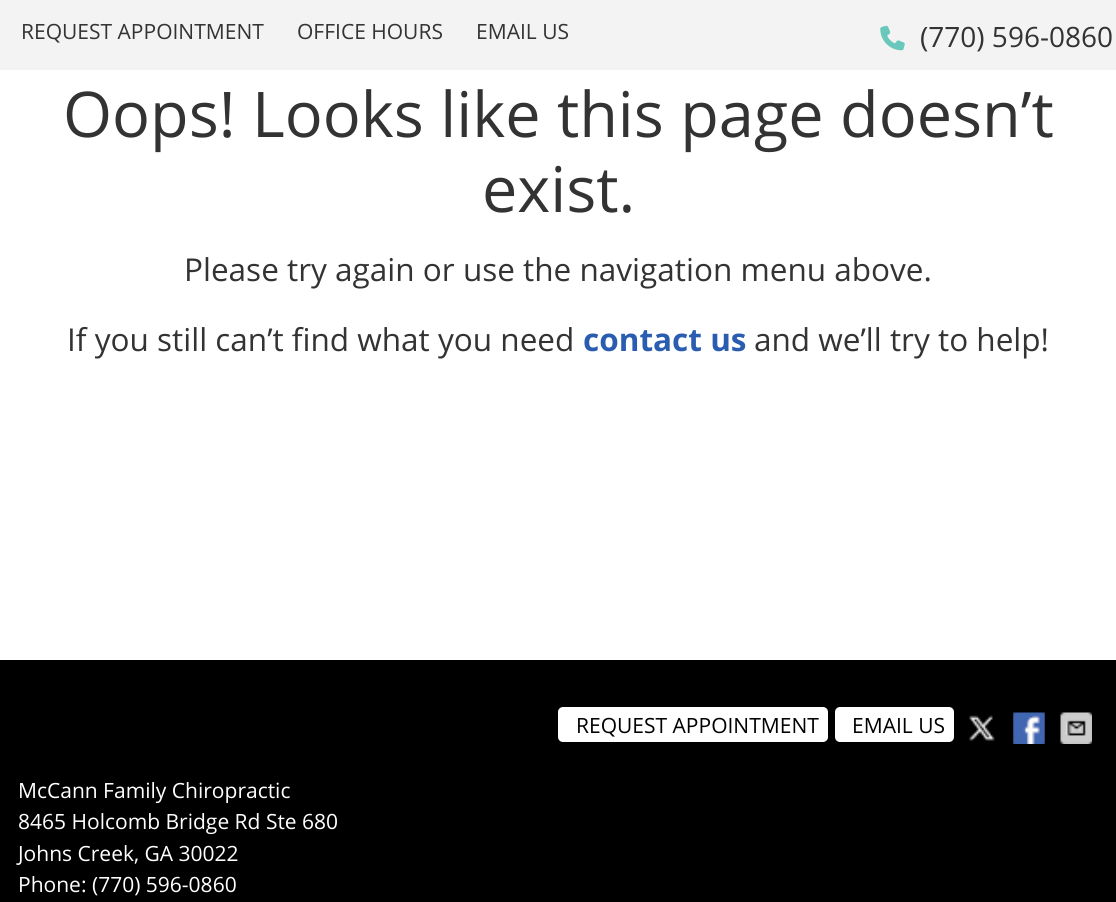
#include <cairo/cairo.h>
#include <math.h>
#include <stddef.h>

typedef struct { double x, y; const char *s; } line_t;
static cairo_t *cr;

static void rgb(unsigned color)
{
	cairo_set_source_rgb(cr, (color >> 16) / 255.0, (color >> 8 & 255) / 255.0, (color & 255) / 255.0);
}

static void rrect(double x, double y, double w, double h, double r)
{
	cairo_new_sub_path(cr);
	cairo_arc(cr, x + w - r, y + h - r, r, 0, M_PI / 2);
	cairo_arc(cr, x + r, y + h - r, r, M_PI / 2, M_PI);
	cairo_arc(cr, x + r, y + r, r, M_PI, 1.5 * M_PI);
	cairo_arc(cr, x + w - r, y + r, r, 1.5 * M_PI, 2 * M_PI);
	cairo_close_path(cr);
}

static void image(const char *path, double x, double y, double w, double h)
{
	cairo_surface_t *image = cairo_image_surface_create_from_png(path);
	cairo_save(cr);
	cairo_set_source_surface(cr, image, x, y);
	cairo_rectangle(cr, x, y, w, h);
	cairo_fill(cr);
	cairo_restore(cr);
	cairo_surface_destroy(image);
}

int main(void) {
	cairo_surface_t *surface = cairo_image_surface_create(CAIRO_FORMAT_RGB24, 1116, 902);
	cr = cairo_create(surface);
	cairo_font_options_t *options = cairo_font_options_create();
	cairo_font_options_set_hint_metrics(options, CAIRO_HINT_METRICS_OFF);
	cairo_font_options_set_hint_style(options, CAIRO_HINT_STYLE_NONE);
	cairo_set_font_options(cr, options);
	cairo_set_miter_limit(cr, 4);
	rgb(0xffffff);
	cairo_paint(cr);
	rgb(0xf3f3f3);
	cairo_rectangle(cr, 0, 0, 1116, 70);
	cairo_fill(cr);
	image("img/1.png", 880, 25, 25, 26);
	rgb(0x000000);
	cairo_rectangle(cr, 0, 660, 1116, 242);
	cairo_fill(cr);
	rgb(0xffffff);
	rrect(558, 707, 270, 35, 5);
	cairo_fill(cr);
	rrect(835, 707, 119, 35, 5);
	cairo_fill(cr);
	image("img/2.png", 969, 715, 26, 26);
	image("img/3.png", 1013, 712, 32, 32);
	image("img/4.png", 1060, 712, 32, 32);
	cairo_select_font_face(cr, "Open Sans", CAIRO_FONT_SLANT_NORMAL, CAIRO_FONT_WEIGHT_NORMAL);
	cairo_set_font_size(cr, 21);
	rgb(0x333333);
	{
		static const line_t items[] = {
			{21, 39, "REQUEST APPOINTMENT"},
			{297, 39, "OFFICE HOURS"},
			{476, 39, "EMAIL US"},
		};
		for (size_t i = 0; i < sizeof items / sizeof *items; i++) {
			cairo_move_to(cr, items[i].x, items[i].y);
			cairo_show_text(cr, items[i].s);
		}
	}
	cairo_set_font_size(cr, 28);
	cairo_move_to(cr, 920, 47);
	cairo_show_text(cr, "(770) 596-0860");
	cairo_set_font_size(cr, 63);
	cairo_move_to(cr, 63, 137);
	cairo_show_text(cr, "Oops! Looks like this page doesn’t");
	cairo_move_to(cr, 482, 212);
	cairo_show_text(cr, "exist.");
	cairo_set_font_size(cr, 31.5);
	cairo_move_to(cr, 184, 281);
	cairo_show_text(cr, "Please try again or use the navigation menu above.");
	cairo_move_to(cr, 67, 351);
	cairo_show_text(cr, "If you still can’t find what you need");
	cairo_select_font_face(cr, "Open Sans", CAIRO_FONT_SLANT_NORMAL, CAIRO_FONT_WEIGHT_BOLD);
	rgb(0x2a5db0);
	cairo_move_to(cr, 583, 351);
	cairo_show_text(cr, "contact us");
	cairo_select_font_face(cr, "Open Sans", CAIRO_FONT_SLANT_NORMAL, CAIRO_FONT_WEIGHT_NORMAL);
	rgb(0x333333);
	cairo_move_to(cr, 754, 351);
	cairo_show_text(cr, "and we’ll try to help!");
	cairo_set_font_size(cr, 21);
	rgb(0x000000);
	cairo_move_to(cr, 576, 733);
	cairo_show_text(cr, "REQUEST APPOINTMENT");
	cairo_move_to(cr, 852, 733);
	cairo_show_text(cr, "EMAIL US");
	rgb(0xffffff);
	{
		static const line_t items[] = {
			{18, 798, "McCann Family Chiropractic"},
			{18, 829, "8465 Holcomb Bridge Rd Ste 680"},
			{18, 861, "Johns Creek, GA 30022"},
			{18, 892, "Phone: (770) 596-0860"},
		};
		for (size_t i = 0; i < sizeof items / sizeof *items; i++) {
			cairo_move_to(cr, items[i].x, items[i].y);
			cairo_show_text(cr, items[i].s);
		}
	}
	cairo_surface_write_to_png(surface, "page.png");
	cairo_font_options_destroy(options);
	cairo_destroy(cr);
	cairo_surface_destroy(surface);
	return 0;
}
